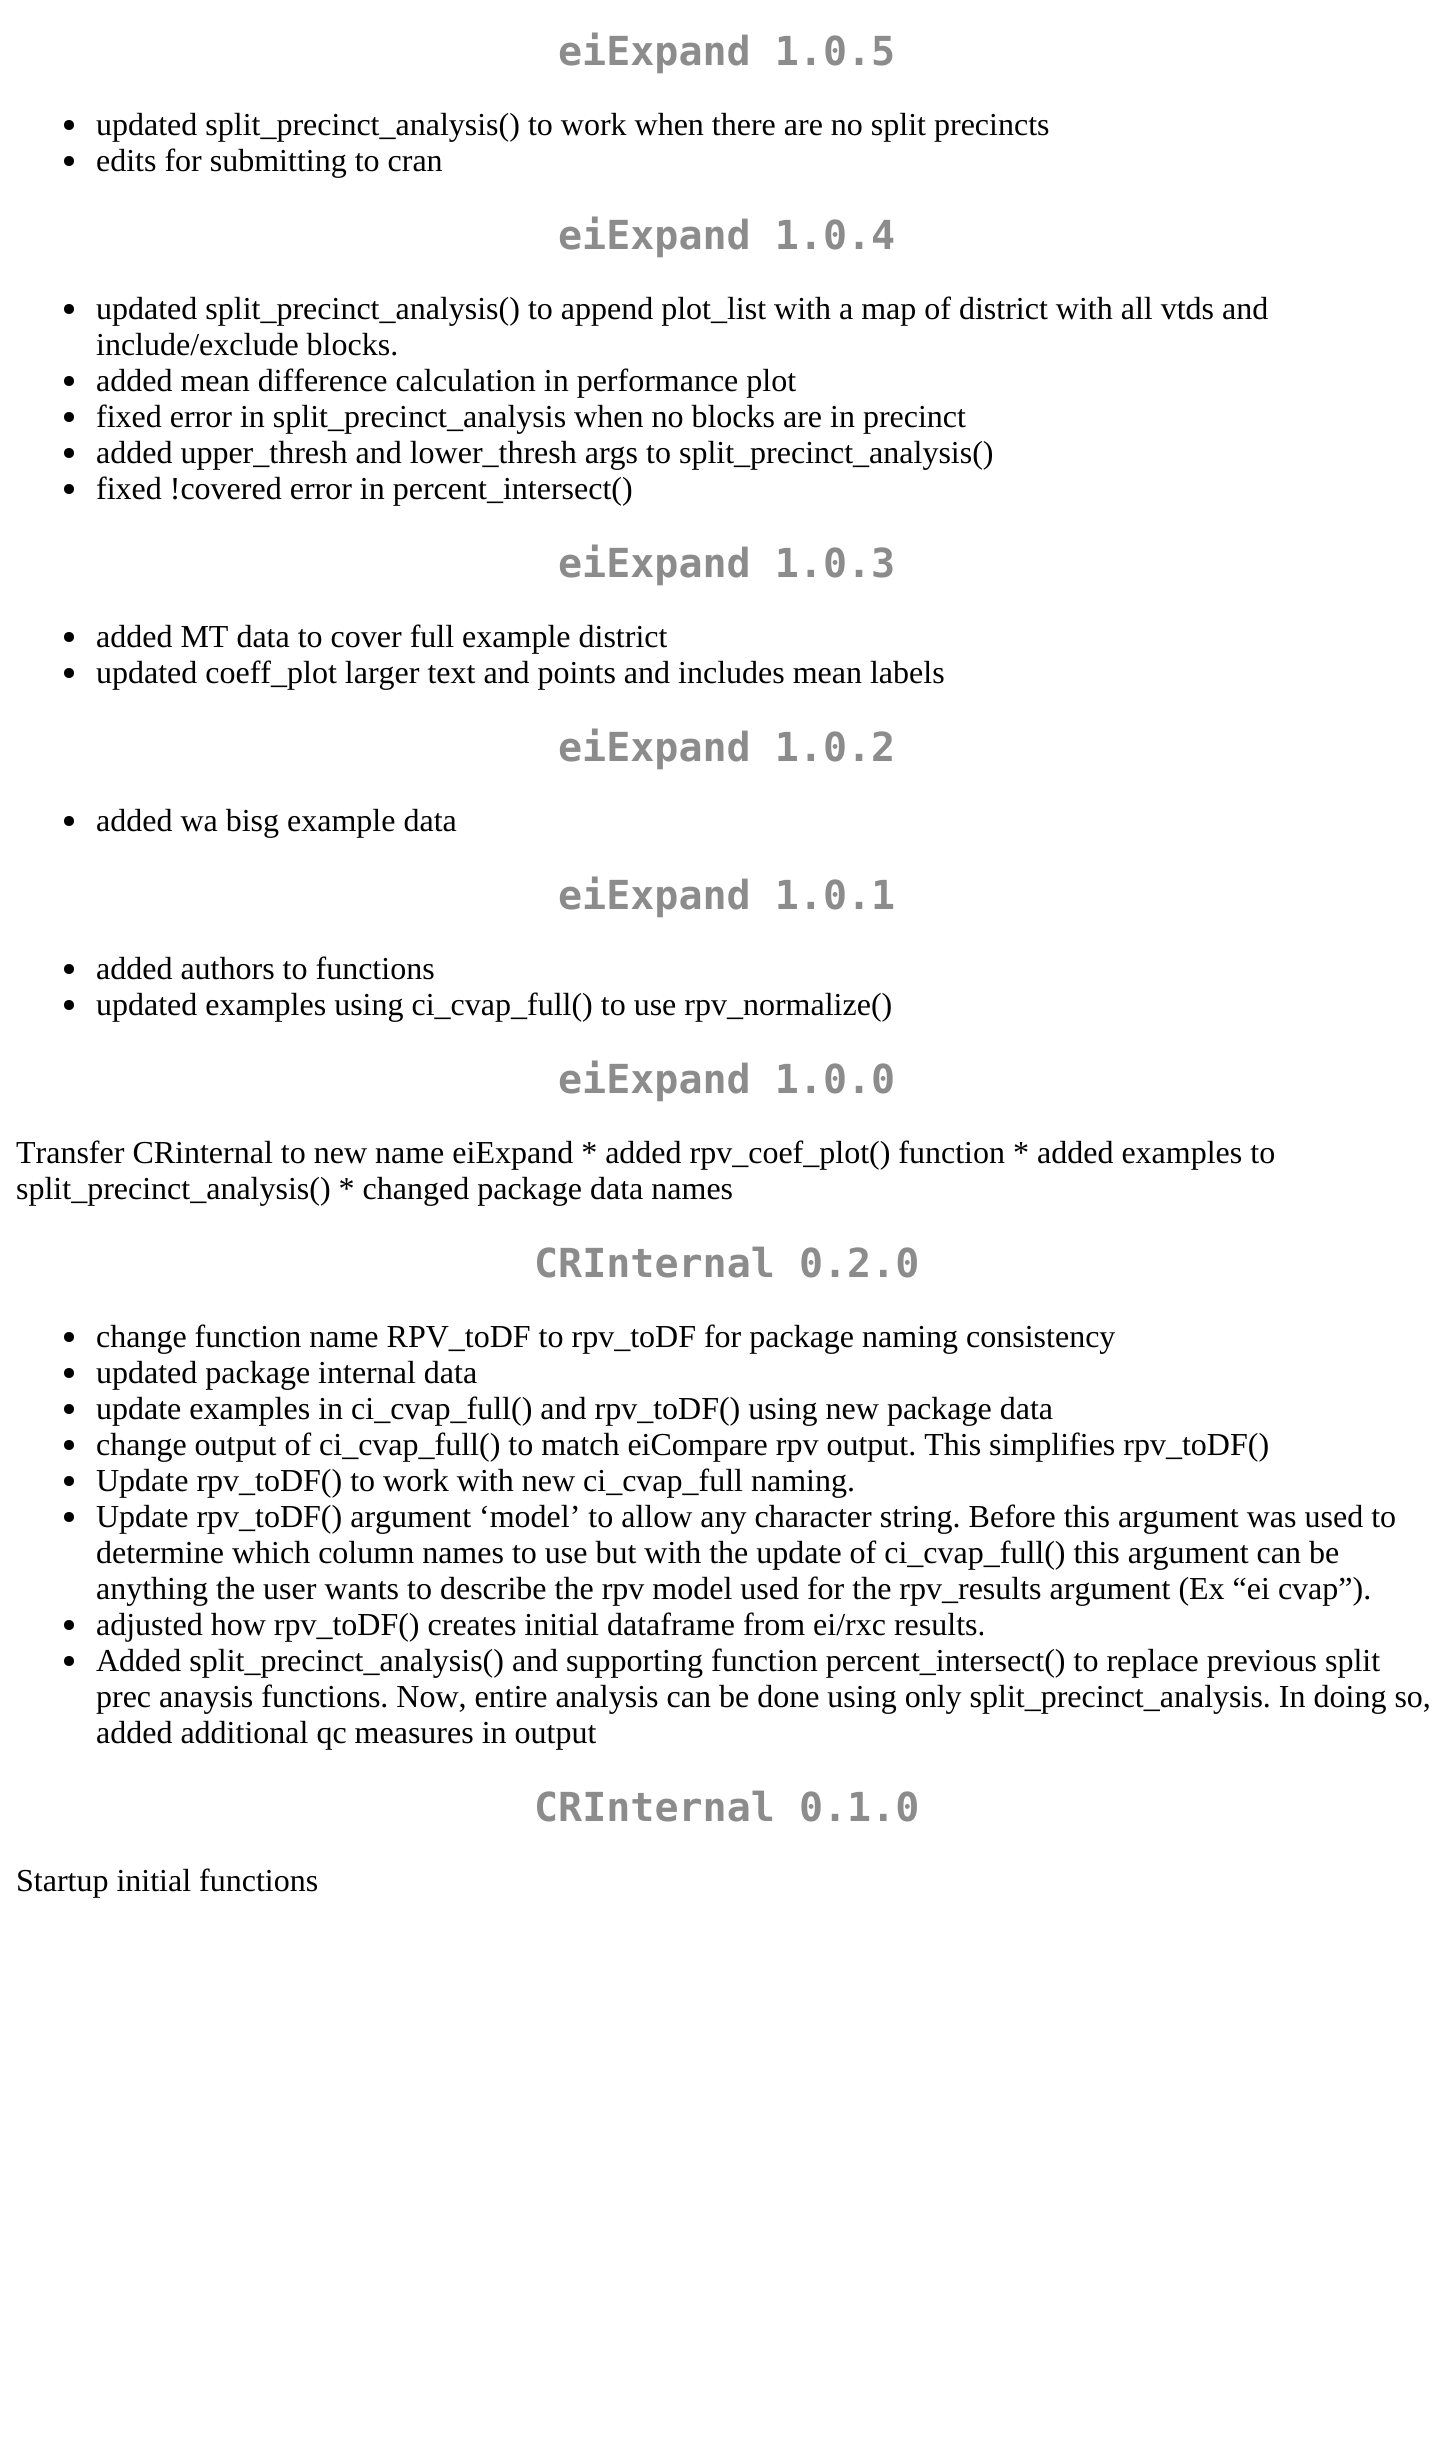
#include <cairo/cairo.h>
#include <math.h>
#include <stddef.h>

typedef struct { double x, y; const char *s; } line_t;
static cairo_t *cr;

static void rgb(unsigned color)
{
	cairo_set_source_rgb(cr, (color >> 16) / 255.0, (color >> 8 & 255) / 255.0, (color & 255) / 255.0);
}

int main(void) {
	cairo_surface_t *surface = cairo_image_surface_create(CAIRO_FORMAT_RGB24, 1453, 2439);
	cr = cairo_create(surface);
	cairo_font_options_t *options = cairo_font_options_create();
	cairo_font_options_set_hint_metrics(options, CAIRO_HINT_METRICS_OFF);
	cairo_font_options_set_hint_style(options, CAIRO_HINT_STYLE_NONE);
	cairo_set_font_options(cr, options);
	cairo_set_miter_limit(cr, 4);
	rgb(0xffffff);
	cairo_paint(cr);
	rgb(0x000000);
	cairo_arc(cr, 69, 125, 5, 0, 2 * M_PI);
	cairo_fill(cr);
	cairo_arc(cr, 69, 161, 5, 0, 2 * M_PI);
	cairo_fill(cr);
	cairo_arc(cr, 69, 309, 5, 0, 2 * M_PI);
	cairo_fill(cr);
	cairo_arc(cr, 69, 381, 5, 0, 2 * M_PI);
	cairo_fill(cr);
	cairo_arc(cr, 69, 417, 5, 0, 2 * M_PI);
	cairo_fill(cr);
	cairo_arc(cr, 69, 453, 5, 0, 2 * M_PI);
	cairo_fill(cr);
	cairo_arc(cr, 69, 489, 5, 0, 2 * M_PI);
	cairo_fill(cr);
	cairo_arc(cr, 69, 637, 5, 0, 2 * M_PI);
	cairo_fill(cr);
	cairo_arc(cr, 69, 673, 5, 0, 2 * M_PI);
	cairo_fill(cr);
	cairo_arc(cr, 69, 821, 5, 0, 2 * M_PI);
	cairo_fill(cr);
	cairo_arc(cr, 69, 969, 5, 0, 2 * M_PI);
	cairo_fill(cr);
	cairo_arc(cr, 69, 1005, 5, 0, 2 * M_PI);
	cairo_fill(cr);
	cairo_arc(cr, 69, 1337, 5, 0, 2 * M_PI);
	cairo_fill(cr);
	cairo_arc(cr, 69, 1373, 5, 0, 2 * M_PI);
	cairo_fill(cr);
	cairo_arc(cr, 69, 1409, 5, 0, 2 * M_PI);
	cairo_fill(cr);
	cairo_arc(cr, 69, 1445, 5, 0, 2 * M_PI);
	cairo_fill(cr);
	cairo_arc(cr, 69, 1481, 5, 0, 2 * M_PI);
	cairo_fill(cr);
	cairo_arc(cr, 69, 1517, 5, 0, 2 * M_PI);
	cairo_fill(cr);
	cairo_arc(cr, 69, 1625, 5, 0, 2 * M_PI);
	cairo_fill(cr);
	cairo_arc(cr, 69, 1661, 5, 0, 2 * M_PI);
	cairo_fill(cr);
	cairo_select_font_face(cr, "DejaVu Sans Mono", CAIRO_FONT_SLANT_NORMAL, CAIRO_FONT_WEIGHT_BOLD);
	cairo_set_font_size(cr, 40);
	rgb(0x8c8c8c);
	cairo_move_to(cr, 558, 65);
	cairo_show_text(cr, "eiExpand 1.0.5");
	cairo_select_font_face(cr, "Liberation Serif", CAIRO_FONT_SLANT_NORMAL, CAIRO_FONT_WEIGHT_NORMAL);
	cairo_set_font_size(cr, 32);
	rgb(0x000000);
	cairo_move_to(cr, 96, 135);
	cairo_show_text(cr, "updated split_precinct_analysis() to work when there are no split precincts");
	cairo_move_to(cr, 96, 171);
	cairo_show_text(cr, "edits for submitting to cran");
	cairo_select_font_face(cr, "DejaVu Sans Mono", CAIRO_FONT_SLANT_NORMAL, CAIRO_FONT_WEIGHT_BOLD);
	cairo_set_font_size(cr, 40);
	rgb(0x8c8c8c);
	cairo_move_to(cr, 558, 249);
	cairo_show_text(cr, "eiExpand 1.0.4");
	cairo_select_font_face(cr, "Liberation Serif", CAIRO_FONT_SLANT_NORMAL, CAIRO_FONT_WEIGHT_NORMAL);
	cairo_set_font_size(cr, 32);
	rgb(0x000000);
	{
		static const line_t items[] = {
			{96, 319, "updated split_precinct_analysis() to append plot_list with a map of district with all vtds and"},
			{96, 355, "include/exclude blocks."},
			{96, 391, "added mean difference calculation in performance plot"},
			{96, 427, "fixed error in split_precinct_analysis when no blocks are in precinct"},
			{96, 463, "added upper_thresh and lower_thresh args to split_precinct_analysis()"},
			{96, 499, "fixed !covered error in percent_intersect()"},
		};
		for (size_t i = 0; i < sizeof items / sizeof *items; i++) {
			cairo_move_to(cr, items[i].x, items[i].y);
			cairo_show_text(cr, items[i].s);
		}
	}
	cairo_select_font_face(cr, "DejaVu Sans Mono", CAIRO_FONT_SLANT_NORMAL, CAIRO_FONT_WEIGHT_BOLD);
	cairo_set_font_size(cr, 40);
	rgb(0x8c8c8c);
	cairo_move_to(cr, 558, 577);
	cairo_show_text(cr, "eiExpand 1.0.3");
	cairo_select_font_face(cr, "Liberation Serif", CAIRO_FONT_SLANT_NORMAL, CAIRO_FONT_WEIGHT_NORMAL);
	cairo_set_font_size(cr, 32);
	rgb(0x000000);
	cairo_move_to(cr, 96, 647);
	cairo_show_text(cr, "added MT data to cover full example district");
	cairo_move_to(cr, 96, 683);
	cairo_show_text(cr, "updated coeff_plot larger text and points and includes mean labels");
	cairo_select_font_face(cr, "DejaVu Sans Mono", CAIRO_FONT_SLANT_NORMAL, CAIRO_FONT_WEIGHT_BOLD);
	cairo_set_font_size(cr, 40);
	rgb(0x8c8c8c);
	cairo_move_to(cr, 558, 761);
	cairo_show_text(cr, "eiExpand 1.0.2");
	cairo_select_font_face(cr, "Liberation Serif", CAIRO_FONT_SLANT_NORMAL, CAIRO_FONT_WEIGHT_NORMAL);
	cairo_set_font_size(cr, 32);
	rgb(0x000000);
	cairo_move_to(cr, 96, 831);
	cairo_show_text(cr, "added wa bisg example data");
	cairo_select_font_face(cr, "DejaVu Sans Mono", CAIRO_FONT_SLANT_NORMAL, CAIRO_FONT_WEIGHT_BOLD);
	cairo_set_font_size(cr, 40);
	rgb(0x8c8c8c);
	cairo_move_to(cr, 558, 909);
	cairo_show_text(cr, "eiExpand 1.0.1");
	cairo_select_font_face(cr, "Liberation Serif", CAIRO_FONT_SLANT_NORMAL, CAIRO_FONT_WEIGHT_NORMAL);
	cairo_set_font_size(cr, 32);
	rgb(0x000000);
	cairo_move_to(cr, 96, 979);
	cairo_show_text(cr, "added authors to functions");
	cairo_move_to(cr, 96, 1015);
	cairo_show_text(cr, "updated examples using ci_cvap_full() to use rpv_normalize()");
	cairo_select_font_face(cr, "DejaVu Sans Mono", CAIRO_FONT_SLANT_NORMAL, CAIRO_FONT_WEIGHT_BOLD);
	cairo_set_font_size(cr, 40);
	rgb(0x8c8c8c);
	cairo_move_to(cr, 558, 1093);
	cairo_show_text(cr, "eiExpand 1.0.0");
	cairo_select_font_face(cr, "Liberation Serif", CAIRO_FONT_SLANT_NORMAL, CAIRO_FONT_WEIGHT_NORMAL);
	cairo_set_font_size(cr, 32);
	rgb(0x000000);
	cairo_move_to(cr, 16, 1163);
	cairo_show_text(cr, "Transfer CRinternal to new name eiExpand * added rpv_coef_plot() function * added examples to");
	cairo_move_to(cr, 16, 1199);
	cairo_show_text(cr, "split_precinct_analysis() * changed package data names");
	cairo_select_font_face(cr, "DejaVu Sans Mono", CAIRO_FONT_SLANT_NORMAL, CAIRO_FONT_WEIGHT_BOLD);
	cairo_set_font_size(cr, 40);
	rgb(0x8c8c8c);
	cairo_move_to(cr, 534, 1277);
	cairo_show_text(cr, "CRInternal 0.2.0");
	cairo_select_font_face(cr, "Liberation Serif", CAIRO_FONT_SLANT_NORMAL, CAIRO_FONT_WEIGHT_NORMAL);
	cairo_set_font_size(cr, 32);
	rgb(0x000000);
	{
		static const line_t items[] = {
			{96, 1347, "change function name RPV_toDF to rpv_toDF for package naming consistency"},
			{96, 1383, "updated package internal data"},
			{96, 1419, "update examples in ci_cvap_full() and rpv_toDF() using new package data"},
			{96, 1455, "change output of ci_cvap_full() to match eiCompare rpv output. This simplifies rpv_toDF()"},
			{96, 1491, "Update rpv_toDF() to work with new ci_cvap_full naming."},
			{96, 1527, "Update rpv_toDF() argument ‘model’ to allow any character string. Before this argument was used to"},
			{96, 1563, "determine which column names to use but with the update of ci_cvap_full() this argument can be"},
			{96, 1599, "anything the user wants to describe the rpv model used for the rpv_results argument (Ex “ei cvap”)."},
			{96, 1635, "adjusted how rpv_toDF() creates initial dataframe from ei/rxc results."},
			{96, 1671, "Added split_precinct_analysis() and supporting function percent_intersect() to replace previous split"},
			{96, 1707, "prec anaysis functions. Now, entire analysis can be done using only split_precinct_analysis. In doing so,"},
			{96, 1743, "added additional qc measures in output"},
		};
		for (size_t i = 0; i < sizeof items / sizeof *items; i++) {
			cairo_move_to(cr, items[i].x, items[i].y);
			cairo_show_text(cr, items[i].s);
		}
	}
	cairo_select_font_face(cr, "DejaVu Sans Mono", CAIRO_FONT_SLANT_NORMAL, CAIRO_FONT_WEIGHT_BOLD);
	cairo_set_font_size(cr, 40);
	rgb(0x8c8c8c);
	cairo_move_to(cr, 534, 1821);
	cairo_show_text(cr, "CRInternal 0.1.0");
	cairo_select_font_face(cr, "Liberation Serif", CAIRO_FONT_SLANT_NORMAL, CAIRO_FONT_WEIGHT_NORMAL);
	cairo_set_font_size(cr, 32);
	rgb(0x000000);
	cairo_move_to(cr, 16, 1891);
	cairo_show_text(cr, "Startup initial functions");
	cairo_surface_write_to_png(surface, "page.png");
	cairo_font_options_destroy(options);
	cairo_destroy(cr);
	cairo_surface_destroy(surface);
	return 0;
}
